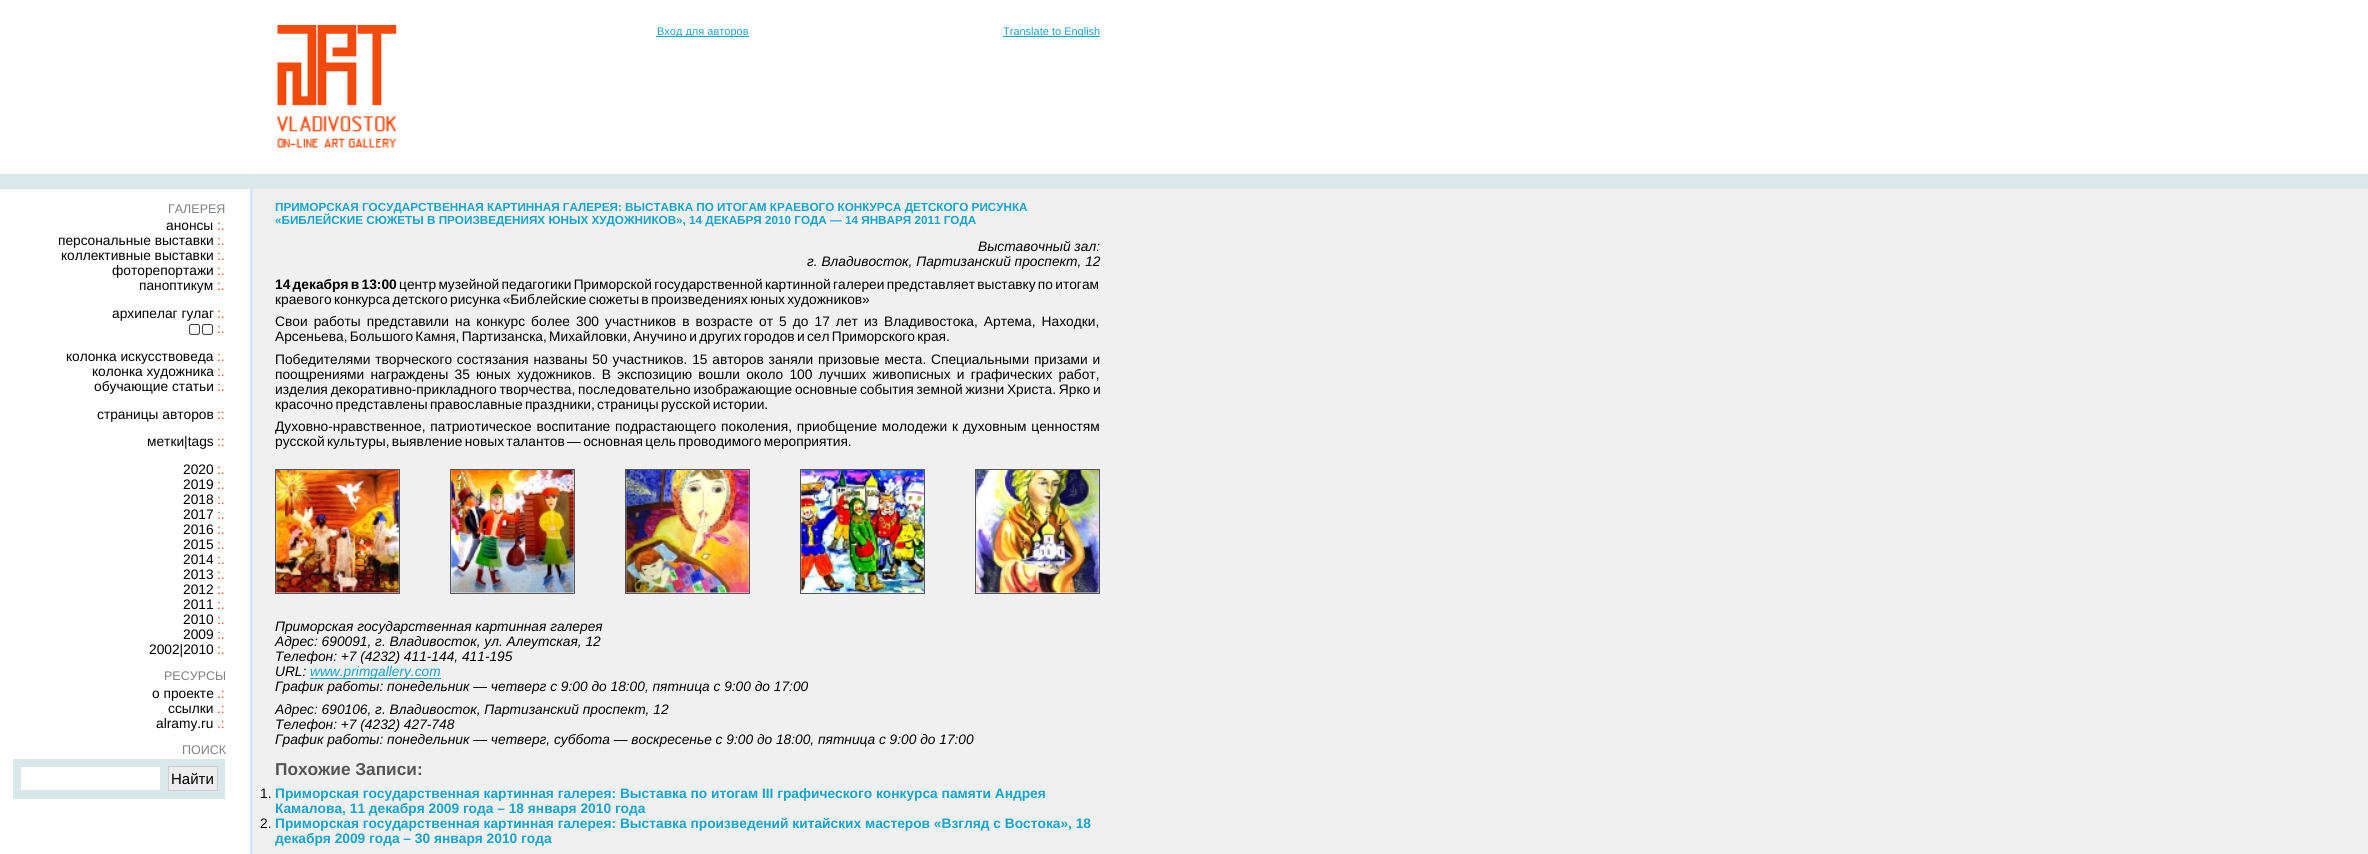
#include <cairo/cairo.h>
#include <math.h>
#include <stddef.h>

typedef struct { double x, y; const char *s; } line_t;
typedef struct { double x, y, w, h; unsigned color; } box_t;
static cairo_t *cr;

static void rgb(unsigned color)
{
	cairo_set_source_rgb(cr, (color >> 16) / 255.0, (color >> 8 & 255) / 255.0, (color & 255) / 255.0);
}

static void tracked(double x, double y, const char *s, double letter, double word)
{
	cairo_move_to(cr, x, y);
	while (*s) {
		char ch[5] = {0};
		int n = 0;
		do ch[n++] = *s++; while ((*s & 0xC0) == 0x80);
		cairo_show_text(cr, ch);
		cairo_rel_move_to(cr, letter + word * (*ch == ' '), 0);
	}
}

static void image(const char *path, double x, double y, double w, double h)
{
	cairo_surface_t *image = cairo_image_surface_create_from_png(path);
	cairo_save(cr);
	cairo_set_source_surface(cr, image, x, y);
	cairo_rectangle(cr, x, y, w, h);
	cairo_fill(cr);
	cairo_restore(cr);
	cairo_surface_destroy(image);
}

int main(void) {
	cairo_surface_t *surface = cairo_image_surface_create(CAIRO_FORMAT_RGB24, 2368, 854);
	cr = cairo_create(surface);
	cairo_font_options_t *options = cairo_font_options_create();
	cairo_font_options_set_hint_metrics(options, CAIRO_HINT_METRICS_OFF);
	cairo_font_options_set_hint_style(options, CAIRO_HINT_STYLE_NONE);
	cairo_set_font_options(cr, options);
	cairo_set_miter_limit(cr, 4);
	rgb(0xffffff);
	cairo_paint(cr);
	image("img/1.png", 277, 25, 120, 123);
	{
		static const box_t items[] = {
			{656, 36, 93, 1, 0x15a4ca},
			{1003, 36, 97, 1, 0x15a4ca},
			{252, 189, 2116, 665, 0xf0f0f0},
		};
		for (size_t i = 0; i < sizeof items / sizeof *items; i++) {
			rgb(items[i].color);
			cairo_rectangle(cr, items[i].x, items[i].y, items[i].w, items[i].h);
			cairo_fill(cr);
		}
	}
	image("img/2.png", 0, 173, 253, 681);
	{
		static const box_t items[] = {
			{0, 174, 2368, 15, 0xdae8eb},
			{13, 759, 212, 40, 0xdae8eb},
			{21, 767, 139, 23, 0xffffff},
		};
		for (size_t i = 0; i < sizeof items / sizeof *items; i++) {
			rgb(items[i].color);
			cairo_rectangle(cr, items[i].x, items[i].y, items[i].w, items[i].h);
			cairo_fill(cr);
		}
	}
	rgb(0xededed);
	cairo_rectangle(cr, 168.5, 766.5, 49, 24);
	cairo_fill_preserve(cr);
	rgb(0xcecece);
	cairo_set_line_width(cr, 1);
	cairo_stroke(cr);
	cairo_rectangle(cr, 275.5, 469.5, 124, 124);
	rgb(0x555555);
	cairo_stroke(cr);
	image("img/3.png", 276, 470, 123, 123);
	cairo_rectangle(cr, 450.5, 469.5, 124, 124);
	cairo_stroke(cr);
	image("img/4.png", 451, 470, 123, 123);
	cairo_rectangle(cr, 625.5, 469.5, 124, 124);
	cairo_stroke(cr);
	image("img/5.png", 626, 470, 123, 123);
	cairo_rectangle(cr, 800.5, 469.5, 124, 124);
	cairo_stroke(cr);
	image("img/6.png", 801, 470, 123, 123);
	cairo_rectangle(cr, 975.5, 469.5, 124, 124);
	cairo_stroke(cr);
	image("img/7.png", 976, 470, 123, 123);
	rgb(0x15a4ca);
	cairo_rectangle(cr, 310, 678, 131, 1);
	cairo_fill(cr);
	cairo_select_font_face(cr, "Liberation Sans", CAIRO_FONT_SLANT_NORMAL, CAIRO_FONT_WEIGHT_NORMAL);
	cairo_set_font_size(cr, 11);
	cairo_move_to(cr, 657, 35);
	cairo_show_text(cr, "Вход для авторов");
	cairo_move_to(cr, 1003, 35);
	cairo_show_text(cr, "Translate to English");
	cairo_set_font_size(cr, 12.5);
	rgb(0x808080);
	cairo_move_to(cr, 168, 213);
	cairo_show_text(cr, "ГАЛЕРЕЯ");
	cairo_set_font_size(cr, 13.75);
	rgb(0x000000);
	cairo_move_to(cr, 166, 230);
	cairo_show_text(cr, "анонсы");
	rgb(0xf2490c);
	cairo_move_to(cr, 217, 230);
	cairo_show_text(cr, ":.");
	rgb(0x000000);
	cairo_move_to(cr, 58, 245);
	cairo_show_text(cr, "персональные выставки");
	rgb(0xf2490c);
	cairo_move_to(cr, 217, 245);
	cairo_show_text(cr, ":.");
	rgb(0x000000);
	cairo_move_to(cr, 61, 260);
	cairo_show_text(cr, "коллективные выставки");
	rgb(0xf2490c);
	cairo_move_to(cr, 217, 260);
	cairo_show_text(cr, ":.");
	rgb(0x000000);
	cairo_move_to(cr, 112, 275);
	cairo_show_text(cr, "фоторепортажи");
	rgb(0xf2490c);
	cairo_move_to(cr, 217, 275);
	cairo_show_text(cr, ":.");
	rgb(0x000000);
	cairo_move_to(cr, 139, 290);
	cairo_show_text(cr, "паноптикум");
	rgb(0xf2490c);
	cairo_move_to(cr, 217, 290);
	cairo_show_text(cr, ":.");
	rgb(0x000000);
	cairo_move_to(cr, 112, 318);
	cairo_show_text(cr, "архипелаг гулаг");
	rgb(0xf2490c);
	cairo_move_to(cr, 217, 318);
	cairo_show_text(cr, ":.");
	cairo_select_font_face(cr, "DejaVu Sans", CAIRO_FONT_SLANT_NORMAL, CAIRO_FONT_WEIGHT_NORMAL);
	rgb(0x000000);
	cairo_move_to(cr, 188, 333);
	cairo_show_text(cr, "▢▢");
	cairo_select_font_face(cr, "Liberation Sans", CAIRO_FONT_SLANT_NORMAL, CAIRO_FONT_WEIGHT_NORMAL);
	rgb(0xf2490c);
	cairo_move_to(cr, 217, 333);
	cairo_show_text(cr, ":.");
	rgb(0x000000);
	cairo_move_to(cr, 66, 361);
	cairo_show_text(cr, "колонка искусствоведа");
	rgb(0xf2490c);
	cairo_move_to(cr, 217, 361);
	cairo_show_text(cr, ":.");
	rgb(0x000000);
	cairo_move_to(cr, 92, 376);
	cairo_show_text(cr, "колонка художника");
	rgb(0xf2490c);
	cairo_move_to(cr, 217, 376);
	cairo_show_text(cr, ":.");
	rgb(0x000000);
	cairo_move_to(cr, 94, 391);
	cairo_show_text(cr, "обучающие статьи");
	rgb(0xf2490c);
	cairo_move_to(cr, 217, 391);
	cairo_show_text(cr, ":.");
	rgb(0x000000);
	cairo_move_to(cr, 97, 419);
	cairo_show_text(cr, "страницы авторов");
	rgb(0xf2490c);
	cairo_move_to(cr, 217, 419);
	cairo_show_text(cr, "::");
	rgb(0x000000);
	cairo_move_to(cr, 147, 446);
	cairo_show_text(cr, "метки|tags");
	rgb(0xf2490c);
	cairo_move_to(cr, 217, 446);
	cairo_show_text(cr, "::");
	rgb(0x000000);
	cairo_move_to(cr, 183, 474);
	cairo_show_text(cr, "2020");
	rgb(0xf2490c);
	cairo_move_to(cr, 217, 474);
	cairo_show_text(cr, ":.");
	rgb(0x000000);
	cairo_move_to(cr, 183, 489);
	cairo_show_text(cr, "2019");
	rgb(0xf2490c);
	cairo_move_to(cr, 217, 489);
	cairo_show_text(cr, ":.");
	rgb(0x000000);
	cairo_move_to(cr, 183, 504);
	cairo_show_text(cr, "2018");
	rgb(0xf2490c);
	cairo_move_to(cr, 217, 504);
	cairo_show_text(cr, ":.");
	rgb(0x000000);
	cairo_move_to(cr, 183, 519);
	cairo_show_text(cr, "2017");
	rgb(0xf2490c);
	cairo_move_to(cr, 217, 519);
	cairo_show_text(cr, ":.");
	rgb(0x000000);
	cairo_move_to(cr, 183, 534);
	cairo_show_text(cr, "2016");
	rgb(0xf2490c);
	cairo_move_to(cr, 217, 534);
	cairo_show_text(cr, ":.");
	rgb(0x000000);
	cairo_move_to(cr, 183, 549);
	cairo_show_text(cr, "2015");
	rgb(0xf2490c);
	cairo_move_to(cr, 217, 549);
	cairo_show_text(cr, ":.");
	rgb(0x000000);
	cairo_move_to(cr, 183, 564);
	cairo_show_text(cr, "2014");
	rgb(0xf2490c);
	cairo_move_to(cr, 217, 564);
	cairo_show_text(cr, ":.");
	rgb(0x000000);
	cairo_move_to(cr, 183, 579);
	cairo_show_text(cr, "2013");
	rgb(0xf2490c);
	cairo_move_to(cr, 217, 579);
	cairo_show_text(cr, ":.");
	rgb(0x000000);
	cairo_move_to(cr, 183, 594);
	cairo_show_text(cr, "2012");
	rgb(0xf2490c);
	cairo_move_to(cr, 217, 594);
	cairo_show_text(cr, ":.");
	rgb(0x000000);
	cairo_move_to(cr, 183, 609);
	cairo_show_text(cr, "2011");
	rgb(0xf2490c);
	cairo_move_to(cr, 217, 609);
	cairo_show_text(cr, ":.");
	rgb(0x000000);
	cairo_move_to(cr, 183, 624);
	cairo_show_text(cr, "2010");
	rgb(0xf2490c);
	cairo_move_to(cr, 217, 624);
	cairo_show_text(cr, ":.");
	rgb(0x000000);
	cairo_move_to(cr, 183, 639);
	cairo_show_text(cr, "2009");
	rgb(0xf2490c);
	cairo_move_to(cr, 217, 639);
	cairo_show_text(cr, ":.");
	rgb(0x000000);
	cairo_move_to(cr, 149, 654);
	cairo_show_text(cr, "2002|2010");
	rgb(0xf2490c);
	cairo_move_to(cr, 217, 654);
	cairo_show_text(cr, ":.");
	cairo_set_font_size(cr, 12.5);
	rgb(0x808080);
	cairo_move_to(cr, 164, 680);
	cairo_show_text(cr, "РЕСУРСЫ");
	cairo_set_font_size(cr, 13.75);
	rgb(0x000000);
	cairo_move_to(cr, 152, 698);
	cairo_show_text(cr, "о проекте");
	rgb(0xf2490c);
	cairo_move_to(cr, 217, 698);
	cairo_show_text(cr, ".:");
	rgb(0x000000);
	cairo_move_to(cr, 168, 713);
	cairo_show_text(cr, "ссылки");
	rgb(0xf2490c);
	cairo_move_to(cr, 217, 713);
	cairo_show_text(cr, ".:");
	rgb(0x000000);
	cairo_move_to(cr, 156, 728);
	cairo_show_text(cr, "alramy.ru");
	rgb(0xf2490c);
	cairo_move_to(cr, 217, 728);
	cairo_show_text(cr, ".:");
	cairo_set_font_size(cr, 12.5);
	rgb(0x808080);
	cairo_move_to(cr, 182, 754);
	cairo_show_text(cr, "ПОИСК");
	cairo_set_font_size(cr, 15);
	rgb(0x000000);
	cairo_move_to(cr, 171, 784);
	cairo_show_text(cr, "Найти");
	cairo_select_font_face(cr, "Liberation Sans", CAIRO_FONT_SLANT_NORMAL, CAIRO_FONT_WEIGHT_BOLD);
	cairo_set_font_size(cr, 11.7);
	rgb(0x15a4ca);
	cairo_move_to(cr, 275, 211);
	cairo_show_text(cr, "ПРИМОРСКАЯ ГОСУДАРСТВЕННАЯ КАРТИННАЯ ГАЛЕРЕЯ: ВЫСТАВКА ПО ИТОГАМ КРАЕВОГО КОНКУРСА ДЕТСКОГО РИСУНКА");
	cairo_move_to(cr, 275, 224);
	cairo_show_text(cr, "«БИБЛЕЙСКИЕ СЮЖЕТЫ В ПРОИЗВЕДЕНИЯХ ЮНЫХ ХУДОЖНИКОВ», 14 ДЕКАБРЯ 2010 ГОДА — 14 ЯНВАРЯ 2011 ГОДА");
	cairo_select_font_face(cr, "Liberation Sans", CAIRO_FONT_SLANT_ITALIC, CAIRO_FONT_WEIGHT_NORMAL);
	cairo_set_font_size(cr, 13.75);
	rgb(0x000000);
	cairo_move_to(cr, 978, 251);
	cairo_show_text(cr, "Выставочный зал:");
	cairo_move_to(cr, 807, 266);
	cairo_show_text(cr, "г. Владивосток, Партизанский проспект, 12");
	cairo_select_font_face(cr, "Liberation Sans", CAIRO_FONT_SLANT_NORMAL, CAIRO_FONT_WEIGHT_BOLD);
	tracked(275, 289, "14 декабря в 13:00", 0, -1.5);
	cairo_select_font_face(cr, "Liberation Sans", CAIRO_FONT_SLANT_NORMAL, CAIRO_FONT_WEIGHT_NORMAL);
	tracked(399, 289, "центр музейной педагогики Приморской государственной картинной галереи представляет выставку по итогам", 0, -1.5);
	tracked(275, 304, "краевого конкурса детского рисунка «Библейские сюжеты в произведениях юных художников»", 0, -1.5);
	tracked(275, 326, "Свои работы представили на конкурс более 300 участников в возрасте от 5 до 17 лет из Владивостока, Артема, Находки,", 0, 2.25);
	tracked(275, 341, "Арсеньева, Большого Камня, Партизанска, Михайловки, Анучино и других городов и сел Приморского края.", 0, -1.5);
	tracked(275, 364, "Победителями творческого состязания названы 50 участников. 15 авторов заняли призовые места. Специальными призами и", 0, 1);
	tracked(275, 379, "поощрениями награждены 35 юных художников. В экспозицию вошли около 100 лучших живописных и графических работ,", 0, 2.4);
	tracked(275, 394, "изделия декоративно-прикладного творчества, последовательно изображающие основные события земной жизни Христа. Ярко и", 0, -1);
	tracked(275, 409, "красочно представлены православные праздники, страницы русской истории.", 0, -1.5);
	tracked(275, 431, "Духовно-нравственное, патриотическое воспитание подрастающего поколения, приобщение молодежи к духовным ценностям", 0, 1);
	tracked(275, 446, "русской культуры, выявление новых талантов — основная цель проводимого мероприятия.", 0, -1.5);
	cairo_select_font_face(cr, "Liberation Sans", CAIRO_FONT_SLANT_ITALIC, CAIRO_FONT_WEIGHT_NORMAL);
	{
		static const line_t items[] = {
			{275, 631, "Приморская государственная картинная галерея"},
			{275, 646, "Адрес: 690091, г. Владивосток, ул. Алеутская, 12"},
			{275, 661, "Телефон: +7 (4232) 411-144, 411-195"},
			{275, 676, "URL:"},
		};
		for (size_t i = 0; i < sizeof items / sizeof *items; i++) {
			cairo_move_to(cr, items[i].x, items[i].y);
			cairo_show_text(cr, items[i].s);
		}
	}
	rgb(0x15a4ca);
	cairo_move_to(cr, 310, 676);
	cairo_show_text(cr, "www.primgallery.com");
	rgb(0x000000);
	{
		static const line_t items[] = {
			{275, 691, "График работы: понедельник — четверг с 9:00 до 18:00, пятница с 9:00 до 17:00"},
			{275, 714, "Адрес: 690106, г. Владивосток, Партизанский проспект, 12"},
			{275, 729, "Телефон: +7 (4232) 427-748"},
			{275, 744, "График работы: понедельник — четверг, суббота — воскресенье с 9:00 до 18:00, пятница с 9:00 до 17:00"},
		};
		for (size_t i = 0; i < sizeof items / sizeof *items; i++) {
			cairo_move_to(cr, items[i].x, items[i].y);
			cairo_show_text(cr, items[i].s);
		}
	}
	cairo_select_font_face(cr, "Liberation Sans", CAIRO_FONT_SLANT_NORMAL, CAIRO_FONT_WEIGHT_BOLD);
	cairo_set_font_size(cr, 17.25);
	rgb(0x555555);
	cairo_move_to(cr, 275, 775);
	cairo_show_text(cr, "Похожие Записи:");
	cairo_select_font_face(cr, "Liberation Sans", CAIRO_FONT_SLANT_NORMAL, CAIRO_FONT_WEIGHT_NORMAL);
	cairo_set_font_size(cr, 13.75);
	rgb(0x000000);
	cairo_move_to(cr, 260, 798);
	cairo_show_text(cr, "1.");
	cairo_select_font_face(cr, "Liberation Sans", CAIRO_FONT_SLANT_NORMAL, CAIRO_FONT_WEIGHT_BOLD);
	rgb(0x15a4ca);
	cairo_move_to(cr, 275, 798);
	cairo_show_text(cr, "Приморская государственная картинная галерея: Выставка по итогам III графического конкурса памяти Андрея");
	cairo_move_to(cr, 275, 813);
	cairo_show_text(cr, "Камалова, 11 декабря 2009 года – 18 января 2010 года");
	cairo_select_font_face(cr, "Liberation Sans", CAIRO_FONT_SLANT_NORMAL, CAIRO_FONT_WEIGHT_NORMAL);
	rgb(0x000000);
	cairo_move_to(cr, 260, 828);
	cairo_show_text(cr, "2.");
	cairo_select_font_face(cr, "Liberation Sans", CAIRO_FONT_SLANT_NORMAL, CAIRO_FONT_WEIGHT_BOLD);
	rgb(0x15a4ca);
	cairo_move_to(cr, 275, 828);
	cairo_show_text(cr, "Приморская государственная картинная галерея: Выставка произведений китайских мастеров «Взгляд с Востока», 18");
	cairo_move_to(cr, 275, 843);
	cairo_show_text(cr, "декабря 2009 года – 30 января 2010 года");
	cairo_surface_write_to_png(surface, "page.png");
	cairo_font_options_destroy(options);
	cairo_destroy(cr);
	cairo_surface_destroy(surface);
	return 0;
}
